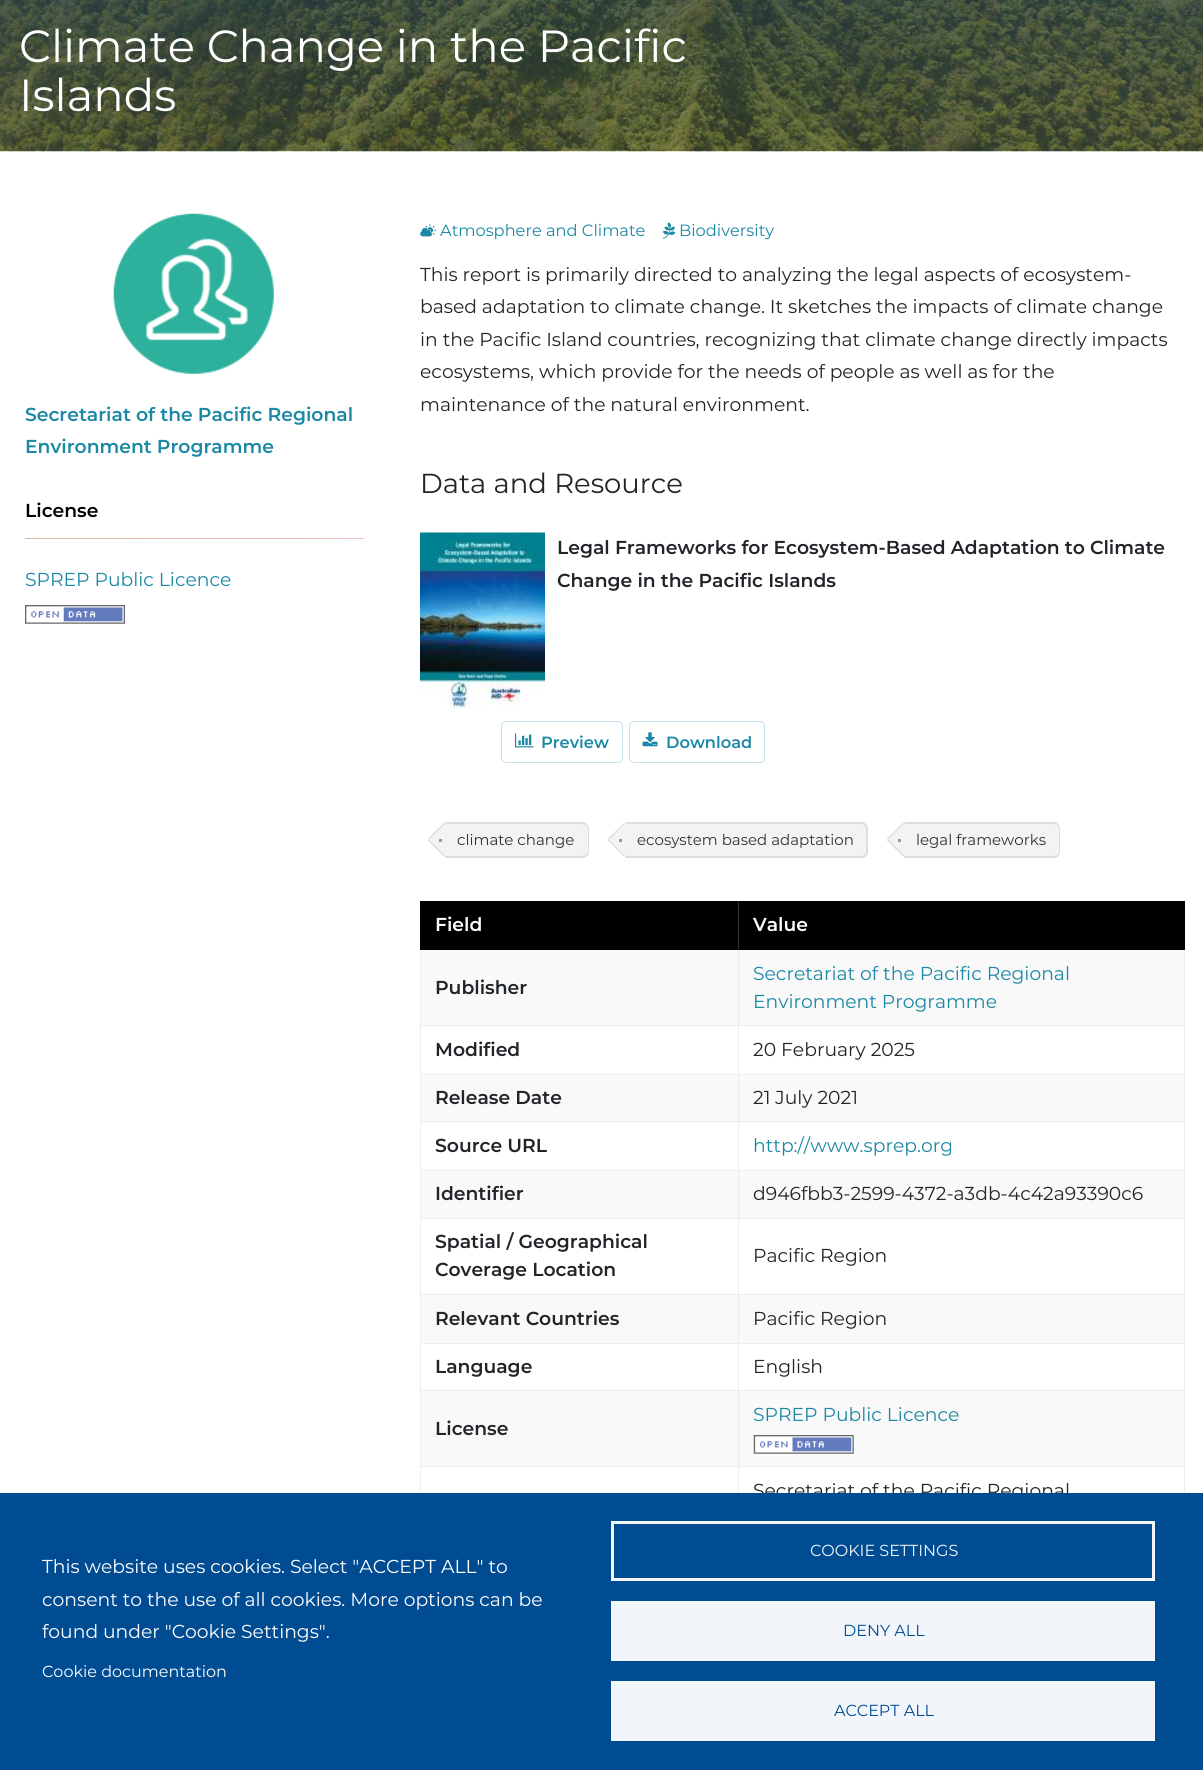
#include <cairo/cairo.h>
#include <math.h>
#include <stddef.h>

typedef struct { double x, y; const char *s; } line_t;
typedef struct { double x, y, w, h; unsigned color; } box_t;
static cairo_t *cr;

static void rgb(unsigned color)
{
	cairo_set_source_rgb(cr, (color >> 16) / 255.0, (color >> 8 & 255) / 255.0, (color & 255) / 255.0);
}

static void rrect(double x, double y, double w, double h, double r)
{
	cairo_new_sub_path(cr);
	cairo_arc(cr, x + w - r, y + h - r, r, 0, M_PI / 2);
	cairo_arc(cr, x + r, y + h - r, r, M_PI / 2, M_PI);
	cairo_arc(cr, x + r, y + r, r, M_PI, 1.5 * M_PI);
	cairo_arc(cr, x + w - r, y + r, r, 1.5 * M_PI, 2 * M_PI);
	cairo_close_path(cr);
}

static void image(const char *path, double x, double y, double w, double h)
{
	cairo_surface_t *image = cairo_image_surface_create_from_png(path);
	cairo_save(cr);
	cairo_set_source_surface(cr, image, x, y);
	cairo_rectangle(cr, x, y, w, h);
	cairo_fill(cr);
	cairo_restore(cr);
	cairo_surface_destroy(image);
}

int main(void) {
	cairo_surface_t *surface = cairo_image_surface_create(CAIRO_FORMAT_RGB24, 1203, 1770);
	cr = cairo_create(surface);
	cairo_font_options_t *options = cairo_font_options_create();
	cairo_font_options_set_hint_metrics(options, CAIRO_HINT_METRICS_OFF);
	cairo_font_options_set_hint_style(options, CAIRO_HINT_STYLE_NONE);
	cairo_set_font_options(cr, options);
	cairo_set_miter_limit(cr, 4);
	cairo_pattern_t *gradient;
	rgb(0xffffff);
	cairo_paint(cr);
	image("img/1.png", 0, 0, 1203, 152);
	image("img/2.png", 113, 213, 161, 161);
	gradient = cairo_pattern_create_linear(25, 538, 364, 538);
	cairo_pattern_add_color_stop_rgba(gradient, 0, 0.859, 0.722, 0.639, 1);
	cairo_pattern_add_color_stop_rgba(gradient, 1, 0.922, 0.757, 0.741, 1);
	cairo_set_source(cr, gradient);
	cairo_pattern_destroy(gradient);
	cairo_rectangle(cr, 25, 538, 339, 1);
	cairo_fill(cr);
	image("img/3.png", 25, 605, 100, 19);
	image("img/4.png", 420, 224, 17, 13);
	image("img/5.png", 662, 222, 14, 17);
	image("img/6.png", 420, 532, 125, 177);
	rrect(501.5, 721.5, 121, 41, 4.5);
	rgb(0xc6e1e9);
	cairo_set_line_width(cr, 1);
	cairo_stroke(cr);
	image("img/7.png", 515, 733, 19, 15);
	rrect(629.5, 721.5, 135, 41, 4.5);
	cairo_stroke(cr);
	image("img/8.png", 642, 732, 16, 15);
	rgb(0xf3f3f3);
	cairo_new_path(cr);
	cairo_move_to(cr, 445, 823);
	cairo_line_to(cr, 583, 823);
	cairo_curve_to(cr, 586.5, 823, 589, 825.5, 589, 829);
	cairo_line_to(cr, 589, 852);
	cairo_curve_to(cr, 589, 855.5, 586.5, 858, 583, 858);
	cairo_line_to(cr, 445, 858);
	cairo_close_path(cr);
	cairo_fill(cr);
	rgb(0xdddddd);
	cairo_set_fill_rule(cr, CAIRO_FILL_RULE_EVEN_ODD);
	cairo_new_path(cr);
	cairo_move_to(cr, 445, 822);
	cairo_line_to(cr, 582, 822);
	cairo_curve_to(cr, 586, 822, 589, 825, 589, 829);
	cairo_line_to(cr, 589, 851);
	cairo_curve_to(cr, 589, 855, 586, 858, 582, 858);
	cairo_line_to(cr, 445, 858);
	cairo_close_path(cr);
	cairo_move_to(cr, 445, 824);
	cairo_line_to(cr, 582, 824);
	cairo_curve_to(cr, 585, 824, 588, 826, 588, 829);
	cairo_line_to(cr, 588, 851);
	cairo_curve_to(cr, 588, 854, 585, 856, 582, 856);
	cairo_line_to(cr, 445, 856);
	cairo_close_path(cr);
	cairo_fill(cr);
	rgb(0xf3f3f3);
	cairo_set_fill_rule(cr, CAIRO_FILL_RULE_WINDING);
	cairo_new_path(cr);
	cairo_move_to(cr, 446.5, 823.5);
	cairo_line_to(cr, 461, 838);
	cairo_curve_to(cr, 462, 839, 462, 840.5, 461, 841.5);
	cairo_line_to(cr, 446.5, 855.5);
	cairo_curve_to(cr, 446, 856.5, 444, 856.5, 443, 855.5);
	cairo_line_to(cr, 429, 841.5);
	cairo_curve_to(cr, 428, 840.5, 428, 839, 429, 838);
	cairo_line_to(cr, 443, 823.5);
	cairo_curve_to(cr, 444, 822.5, 446, 822.5, 446.5, 823.5);
	cairo_close_path(cr);
	cairo_fill(cr);
	rgb(0xdddddd);
	cairo_new_path(cr);
	cairo_move_to(cr, 429, 839.5);
	cairo_line_to(cr, 445, 855.5);
	cairo_line_to(cr, 444, 856.5);
	cairo_line_to(cr, 428, 840.5);
	cairo_close_path(cr);
	cairo_fill(cr);
	cairo_new_path(cr);
	cairo_move_to(cr, 444, 823);
	cairo_line_to(cr, 445, 823.5);
	cairo_line_to(cr, 429, 839.5);
	cairo_line_to(cr, 428, 838.5);
	cairo_close_path(cr);
	cairo_fill(cr);
	rgb(0x999999);
	cairo_rectangle(cr, 439, 839, 3, 3);
	cairo_fill(cr);
	rgb(0xf3f3f3);
	cairo_new_path(cr);
	cairo_move_to(cr, 625, 823);
	cairo_line_to(cr, 862, 823);
	cairo_curve_to(cr, 865.5, 823, 868, 825.5, 868, 829);
	cairo_line_to(cr, 868, 852);
	cairo_curve_to(cr, 868, 855.5, 865.5, 858, 862, 858);
	cairo_line_to(cr, 625, 858);
	cairo_close_path(cr);
	cairo_fill(cr);
	rgb(0xdddddd);
	cairo_set_fill_rule(cr, CAIRO_FILL_RULE_EVEN_ODD);
	cairo_new_path(cr);
	cairo_move_to(cr, 625, 822);
	cairo_line_to(cr, 861, 822);
	cairo_curve_to(cr, 865, 822, 868, 825, 868, 829);
	cairo_line_to(cr, 868, 851);
	cairo_curve_to(cr, 868, 855, 865, 858, 861, 858);
	cairo_line_to(cr, 625, 858);
	cairo_close_path(cr);
	cairo_move_to(cr, 625, 824);
	cairo_line_to(cr, 861, 824);
	cairo_curve_to(cr, 864, 824, 866, 826, 866, 829);
	cairo_line_to(cr, 866, 851);
	cairo_curve_to(cr, 866, 854, 864, 856, 861, 856);
	cairo_line_to(cr, 625, 856);
	cairo_close_path(cr);
	cairo_fill(cr);
	rgb(0xf3f3f3);
	cairo_set_fill_rule(cr, CAIRO_FILL_RULE_WINDING);
	cairo_new_path(cr);
	cairo_move_to(cr, 626.5, 823.5);
	cairo_line_to(cr, 640.5, 838);
	cairo_curve_to(cr, 641.5, 839, 641.5, 840.5, 640.5, 841.5);
	cairo_line_to(cr, 626.5, 855.5);
	cairo_curve_to(cr, 625.5, 856.5, 624, 856.5, 623, 855.5);
	cairo_line_to(cr, 609, 841.5);
	cairo_curve_to(cr, 608, 840.5, 608, 839, 609, 838);
	cairo_line_to(cr, 623, 823.5);
	cairo_curve_to(cr, 624, 822.5, 625.5, 822.5, 626.5, 823.5);
	cairo_close_path(cr);
	cairo_fill(cr);
	rgb(0xdddddd);
	cairo_new_path(cr);
	cairo_move_to(cr, 609, 839.5);
	cairo_line_to(cr, 624.5, 855.5);
	cairo_line_to(cr, 624, 856.5);
	cairo_line_to(cr, 608, 840.5);
	cairo_close_path(cr);
	cairo_fill(cr);
	cairo_new_path(cr);
	cairo_move_to(cr, 624, 823);
	cairo_line_to(cr, 624.5, 823.5);
	cairo_line_to(cr, 609, 839.5);
	cairo_line_to(cr, 608, 838.5);
	cairo_close_path(cr);
	cairo_fill(cr);
	rgb(0x999999);
	cairo_rectangle(cr, 619, 839, 3, 3);
	cairo_fill(cr);
	rgb(0xf3f3f3);
	cairo_new_path(cr);
	cairo_move_to(cr, 904, 823);
	cairo_line_to(cr, 1054, 823);
	cairo_curve_to(cr, 1057.5, 823, 1060, 825.5, 1060, 829);
	cairo_line_to(cr, 1060, 852);
	cairo_curve_to(cr, 1060, 855.5, 1057.5, 858, 1054, 858);
	cairo_line_to(cr, 904, 858);
	cairo_close_path(cr);
	cairo_fill(cr);
	rgb(0xdddddd);
	cairo_set_fill_rule(cr, CAIRO_FILL_RULE_EVEN_ODD);
	cairo_new_path(cr);
	cairo_move_to(cr, 904, 822);
	cairo_line_to(cr, 1054, 822);
	cairo_curve_to(cr, 1057, 822, 1060, 825, 1060, 829);
	cairo_line_to(cr, 1060, 851);
	cairo_curve_to(cr, 1060, 855, 1057, 858, 1054, 858);
	cairo_line_to(cr, 904, 858);
	cairo_close_path(cr);
	cairo_move_to(cr, 904, 824);
	cairo_line_to(cr, 1054, 824);
	cairo_curve_to(cr, 1057, 824, 1059, 826, 1059, 829);
	cairo_line_to(cr, 1059, 851);
	cairo_curve_to(cr, 1059, 854, 1057, 856, 1054, 856);
	cairo_line_to(cr, 904, 856);
	cairo_close_path(cr);
	cairo_fill(cr);
	rgb(0xf3f3f3);
	cairo_set_fill_rule(cr, CAIRO_FILL_RULE_WINDING);
	cairo_new_path(cr);
	cairo_move_to(cr, 905.5, 823.5);
	cairo_line_to(cr, 920, 838);
	cairo_curve_to(cr, 921, 839, 921, 840.5, 920, 841.5);
	cairo_line_to(cr, 905.5, 855.5);
	cairo_curve_to(cr, 904.5, 856.5, 903, 856.5, 902, 855.5);
	cairo_line_to(cr, 888, 841.5);
	cairo_curve_to(cr, 887, 840.5, 887, 839, 888, 838);
	cairo_line_to(cr, 902, 823.5);
	cairo_curve_to(cr, 903, 822.5, 904.5, 822.5, 905.5, 823.5);
	cairo_close_path(cr);
	cairo_fill(cr);
	rgb(0xdddddd);
	cairo_new_path(cr);
	cairo_move_to(cr, 888, 839.5);
	cairo_line_to(cr, 904, 855.5);
	cairo_line_to(cr, 903, 856.5);
	cairo_line_to(cr, 887, 840.5);
	cairo_close_path(cr);
	cairo_fill(cr);
	cairo_new_path(cr);
	cairo_move_to(cr, 903, 823);
	cairo_line_to(cr, 904, 823.5);
	cairo_line_to(cr, 888, 839.5);
	cairo_line_to(cr, 887, 838.5);
	cairo_close_path(cr);
	cairo_fill(cr);
	{
		static const box_t items[] = {
			{898, 839, 3, 3, 0x999999},
			{420, 901, 318, 48, 0x000000},
			{738, 901, 447, 1, 0x000000},
			{738, 1025, 447, 1, 0xeeeeee},
			{738, 1074, 447, 1, 0xeeeeee},
			{421, 1075, 763, 48, 0xf9f9f9},
			{738, 1121, 447, 1, 0xeeeeee},
			{738, 1170, 447, 1, 0xeeeeee},
			{738, 1218, 447, 1, 0xeeeeee},
			{738, 1294, 447, 1, 0xeeeeee},
			{738, 1343, 447, 1, 0xeeeeee},
			{738, 1390, 447, 1, 0xeeeeee},
			{421, 1391, 763, 77, 0xf9f9f9},
			{738, 1466, 447, 1, 0xeeeeee},
			{1184, 1466, 1, 27, 0xeeeeee},
			{1184, 1390, 1, 78, 0xeeeeee},
			{1184, 1343, 1, 48, 0xeeeeee},
			{1184, 1294, 1, 50, 0xeeeeee},
			{1184, 1218, 1, 77, 0xeeeeee},
			{1184, 1170, 1, 49, 0xeeeeee},
			{1184, 1121, 1, 50, 0xeeeeee},
			{1184, 1074, 1, 49, 0xeeeeee},
			{1184, 949, 1, 126, 0xeeeeee},
			{1184, 901, 1, 49, 0x000000},
			{421, 950, 763, 75, 0xf9f9f9},
			{421, 1171, 763, 47, 0xf9f9f9},
			{421, 1295, 763, 48, 0xf9f9f9},
			{738, 1466, 1, 27, 0xeeeeee},
			{420, 1466, 319, 1, 0xeeeeee},
			{738, 1390, 1, 78, 0xeeeeee},
			{420, 1390, 319, 1, 0xeeeeee},
			{738, 1343, 1, 48, 0xeeeeee},
			{420, 1343, 319, 1, 0xeeeeee},
			{738, 1294, 1, 50, 0xeeeeee},
			{420, 1294, 319, 1, 0xeeeeee},
			{738, 1218, 1, 77, 0xeeeeee},
			{420, 1218, 319, 1, 0xeeeeee},
			{738, 1170, 1, 49, 0xeeeeee},
			{420, 1170, 319, 1, 0xeeeeee},
			{738, 1121, 1, 50, 0xeeeeee},
			{420, 1121, 319, 1, 0xeeeeee},
			{738, 1074, 1, 49, 0xeeeeee},
			{420, 1074, 319, 1, 0xeeeeee},
			{738, 1025, 1, 50, 0xeeeeee},
			{420, 1025, 319, 1, 0xeeeeee},
			{738, 949, 1, 77, 0xeeeeee},
			{738, 949, 447, 1, 0x000000},
			{738, 901, 1, 49, 0x333333},
			{420, 1466, 1, 27, 0xeeeeee},
			{420, 1390, 1, 78, 0xeeeeee},
			{420, 1343, 1, 48, 0xeeeeee},
			{420, 1294, 1, 50, 0xeeeeee},
			{420, 1218, 1, 77, 0xeeeeee},
			{420, 1170, 1, 49, 0xeeeeee},
			{420, 1121, 1, 50, 0xeeeeee},
			{420, 1074, 1, 49, 0xeeeeee},
			{420, 949, 1, 126, 0xeeeeee},
			{420, 949, 319, 1, 0x000000},
			{739, 902, 445, 47, 0x000000},
		};
		for (size_t i = 0; i < sizeof items / sizeof *items; i++) {
			rgb(items[i].color);
			cairo_rectangle(cr, items[i].x, items[i].y, items[i].w, items[i].h);
			cairo_fill(cr);
		}
	}
	image("img/9.png", 753, 1435, 101, 19);
	cairo_select_font_face(cr, "Montserrat", CAIRO_FONT_SLANT_NORMAL, CAIRO_FONT_WEIGHT_NORMAL);
	cairo_set_font_size(cr, 45);
	rgb(0xffffff);
	cairo_move_to(cr, 19, 62);
	cairo_show_text(cr, "Climate Change in the Pacific");
	cairo_move_to(cr, 19, 111);
	cairo_show_text(cr, "Islands");
	cairo_select_font_face(cr, "Montserrat SemiBold", CAIRO_FONT_SLANT_NORMAL, CAIRO_FONT_WEIGHT_NORMAL);
	cairo_set_font_size(cr, 18.75);
	rgb(0x1b88a5);
	cairo_move_to(cr, 25, 421);
	cairo_show_text(cr, "Secretariat of the Pacific Regional");
	cairo_move_to(cr, 25, 453);
	cairo_show_text(cr, "Environment Programme");
	rgb(0x000000);
	cairo_move_to(cr, 25, 517);
	cairo_show_text(cr, "License");
	cairo_select_font_face(cr, "Montserrat", CAIRO_FONT_SLANT_NORMAL, CAIRO_FONT_WEIGHT_NORMAL);
	rgb(0x1b88a5);
	cairo_move_to(cr, 25, 586);
	cairo_show_text(cr, "SPREP Public Licence");
	cairo_set_font_size(cr, 16.25);
	cairo_move_to(cr, 440, 236);
	cairo_show_text(cr, "Atmosphere and Climate");
	cairo_move_to(cr, 679, 236);
	cairo_show_text(cr, "Biodiversity");
	cairo_set_font_size(cr, 18.75);
	rgb(0x212529);
	{
		static const line_t items[] = {
			{420, 281, "This report is primarily directed to analyzing the legal aspects of ecosystem-"},
			{420, 313, "based adaptation to climate change. It sketches the impacts of climate change"},
			{420, 346, "in the Pacific Island countries, recognizing that climate change directly impacts"},
			{420, 378, "ecosystems, which provide for the needs of people as well as for the"},
			{420, 411, "maintenance of the natural environment."},
		};
		for (size_t i = 0; i < sizeof items / sizeof *items; i++) {
			cairo_move_to(cr, items[i].x, items[i].y);
			cairo_show_text(cr, items[i].s);
		}
	}
	cairo_set_font_size(cr, 27.5);
	cairo_move_to(cr, 420, 493);
	cairo_show_text(cr, "Data and Resource");
	cairo_select_font_face(cr, "Montserrat SemiBold", CAIRO_FONT_SLANT_NORMAL, CAIRO_FONT_WEIGHT_NORMAL);
	cairo_set_font_size(cr, 18.75);
	cairo_move_to(cr, 557, 554);
	cairo_show_text(cr, "Legal Frameworks for Ecosystem-Based Adaptation to Climate");
	cairo_move_to(cr, 557, 587);
	cairo_show_text(cr, "Change in the Pacific Islands");
	cairo_set_font_size(cr, 16.25);
	rgb(0x1b88a5);
	cairo_move_to(cr, 541, 748);
	cairo_show_text(cr, "Preview");
	cairo_move_to(cr, 666, 748);
	cairo_show_text(cr, "Download");
	cairo_select_font_face(cr, "Montserrat", CAIRO_FONT_SLANT_NORMAL, CAIRO_FONT_WEIGHT_NORMAL);
	cairo_set_font_size(cr, 15);
	rgb(0x333333);
	{
		static const line_t items[] = {
			{457, 845, "climate change"},
			{637, 845, "ecosystem based adaptation"},
			{916, 845, "legal frameworks"},
		};
		for (size_t i = 0; i < sizeof items / sizeof *items; i++) {
			cairo_move_to(cr, items[i].x, items[i].y);
			cairo_show_text(cr, items[i].s);
		}
	}
	cairo_select_font_face(cr, "Montserrat SemiBold", CAIRO_FONT_SLANT_NORMAL, CAIRO_FONT_WEIGHT_NORMAL);
	cairo_set_font_size(cr, 18.75);
	rgb(0xffffff);
	cairo_move_to(cr, 435, 931);
	cairo_show_text(cr, "Field");
	cairo_move_to(cr, 753, 931);
	cairo_show_text(cr, "Value");
	rgb(0x212529);
	cairo_move_to(cr, 435, 994);
	cairo_show_text(cr, "Publisher");
	cairo_select_font_face(cr, "Montserrat", CAIRO_FONT_SLANT_NORMAL, CAIRO_FONT_WEIGHT_NORMAL);
	rgb(0x1b88a5);
	cairo_move_to(cr, 753, 980);
	cairo_show_text(cr, "Secretariat of the Pacific Regional");
	cairo_move_to(cr, 753, 1008);
	cairo_show_text(cr, "Environment Programme");
	cairo_select_font_face(cr, "Montserrat SemiBold", CAIRO_FONT_SLANT_NORMAL, CAIRO_FONT_WEIGHT_NORMAL);
	rgb(0x212529);
	cairo_move_to(cr, 435, 1056);
	cairo_show_text(cr, "Modified");
	cairo_select_font_face(cr, "Montserrat", CAIRO_FONT_SLANT_NORMAL, CAIRO_FONT_WEIGHT_NORMAL);
	cairo_move_to(cr, 753, 1056);
	cairo_show_text(cr, "20 February 2025");
	cairo_select_font_face(cr, "Montserrat SemiBold", CAIRO_FONT_SLANT_NORMAL, CAIRO_FONT_WEIGHT_NORMAL);
	cairo_move_to(cr, 435, 1104);
	cairo_show_text(cr, "Release Date");
	cairo_select_font_face(cr, "Montserrat", CAIRO_FONT_SLANT_NORMAL, CAIRO_FONT_WEIGHT_NORMAL);
	cairo_move_to(cr, 753, 1104);
	cairo_show_text(cr, "21 July 2021");
	cairo_select_font_face(cr, "Montserrat SemiBold", CAIRO_FONT_SLANT_NORMAL, CAIRO_FONT_WEIGHT_NORMAL);
	cairo_move_to(cr, 435, 1152);
	cairo_show_text(cr, "Source URL");
	cairo_select_font_face(cr, "Montserrat", CAIRO_FONT_SLANT_NORMAL, CAIRO_FONT_WEIGHT_NORMAL);
	rgb(0x1b88a5);
	cairo_move_to(cr, 753, 1152);
	cairo_show_text(cr, "http://www.sprep.org");
	cairo_select_font_face(cr, "Montserrat SemiBold", CAIRO_FONT_SLANT_NORMAL, CAIRO_FONT_WEIGHT_NORMAL);
	rgb(0x212529);
	cairo_move_to(cr, 435, 1200);
	cairo_show_text(cr, "Identifier");
	cairo_select_font_face(cr, "Montserrat", CAIRO_FONT_SLANT_NORMAL, CAIRO_FONT_WEIGHT_NORMAL);
	cairo_move_to(cr, 753, 1200);
	cairo_show_text(cr, "d946fbb3-2599-4372-a3db-4c42a93390c6");
	cairo_select_font_face(cr, "Montserrat SemiBold", CAIRO_FONT_SLANT_NORMAL, CAIRO_FONT_WEIGHT_NORMAL);
	cairo_move_to(cr, 435, 1248);
	cairo_show_text(cr, "Spatial / Geographical");
	cairo_move_to(cr, 435, 1276);
	cairo_show_text(cr, "Coverage Location");
	cairo_select_font_face(cr, "Montserrat", CAIRO_FONT_SLANT_NORMAL, CAIRO_FONT_WEIGHT_NORMAL);
	cairo_move_to(cr, 753, 1262);
	cairo_show_text(cr, "Pacific Region");
	cairo_select_font_face(cr, "Montserrat SemiBold", CAIRO_FONT_SLANT_NORMAL, CAIRO_FONT_WEIGHT_NORMAL);
	cairo_move_to(cr, 435, 1325);
	cairo_show_text(cr, "Relevant Countries");
	cairo_select_font_face(cr, "Montserrat", CAIRO_FONT_SLANT_NORMAL, CAIRO_FONT_WEIGHT_NORMAL);
	cairo_move_to(cr, 753, 1325);
	cairo_show_text(cr, "Pacific Region");
	cairo_select_font_face(cr, "Montserrat SemiBold", CAIRO_FONT_SLANT_NORMAL, CAIRO_FONT_WEIGHT_NORMAL);
	cairo_move_to(cr, 435, 1373);
	cairo_show_text(cr, "Language");
	cairo_select_font_face(cr, "Montserrat", CAIRO_FONT_SLANT_NORMAL, CAIRO_FONT_WEIGHT_NORMAL);
	cairo_move_to(cr, 753, 1373);
	cairo_show_text(cr, "English");
	rgb(0x1b88a5);
	cairo_move_to(cr, 753, 1421);
	cairo_show_text(cr, "SPREP Public Licence");
	cairo_select_font_face(cr, "Montserrat SemiBold", CAIRO_FONT_SLANT_NORMAL, CAIRO_FONT_WEIGHT_NORMAL);
	rgb(0x212529);
	cairo_move_to(cr, 435, 1435);
	cairo_show_text(cr, "License");
	cairo_select_font_face(cr, "Montserrat", CAIRO_FONT_SLANT_NORMAL, CAIRO_FONT_WEIGHT_NORMAL);
	cairo_move_to(cr, 753, 1497);
	cairo_show_text(cr, "Secretariat of the Pacific Regional");
	rgb(0x004c93);
	cairo_rectangle(cr, 0, 1493, 1203, 277);
	cairo_fill(cr);
	rgb(0xffffff);
	{
		static const line_t items[] = {
			{42, 1573, "This website uses cookies. Select \"ACCEPT ALL\" to"},
			{42, 1606, "consent to the use of all cookies. More options can be"},
			{42, 1638, "found under \"Cookie Settings\"."},
		};
		for (size_t i = 0; i < sizeof items / sizeof *items; i++) {
			cairo_move_to(cr, items[i].x, items[i].y);
			cairo_show_text(cr, items[i].s);
		}
	}
	cairo_set_font_size(cr, 16);
	cairo_move_to(cr, 42, 1677);
	cairo_show_text(cr, "Cookie documentation");
	cairo_rectangle(cr, 612.5, 1522.5, 541, 57);
	rgb(0xf2f6fa);
	cairo_set_line_width(cr, 3);
	cairo_stroke(cr);
	cairo_move_to(cr, 810, 1556);
	cairo_show_text(cr, "COOKIE SETTINGS");
	cairo_rectangle(cr, 611, 1601, 544, 60);
	cairo_fill(cr);
	rgb(0x004c93);
	cairo_move_to(cr, 843, 1636);
	cairo_show_text(cr, "DENY ALL");
	rgb(0xf2f6fa);
	cairo_rectangle(cr, 611, 1681, 544, 60);
	cairo_fill(cr);
	rgb(0x004c93);
	cairo_move_to(cr, 834, 1716);
	cairo_show_text(cr, "ACCEPT ALL");
	cairo_surface_write_to_png(surface, "page.png");
	cairo_font_options_destroy(options);
	cairo_destroy(cr);
	cairo_surface_destroy(surface);
	return 0;
}
